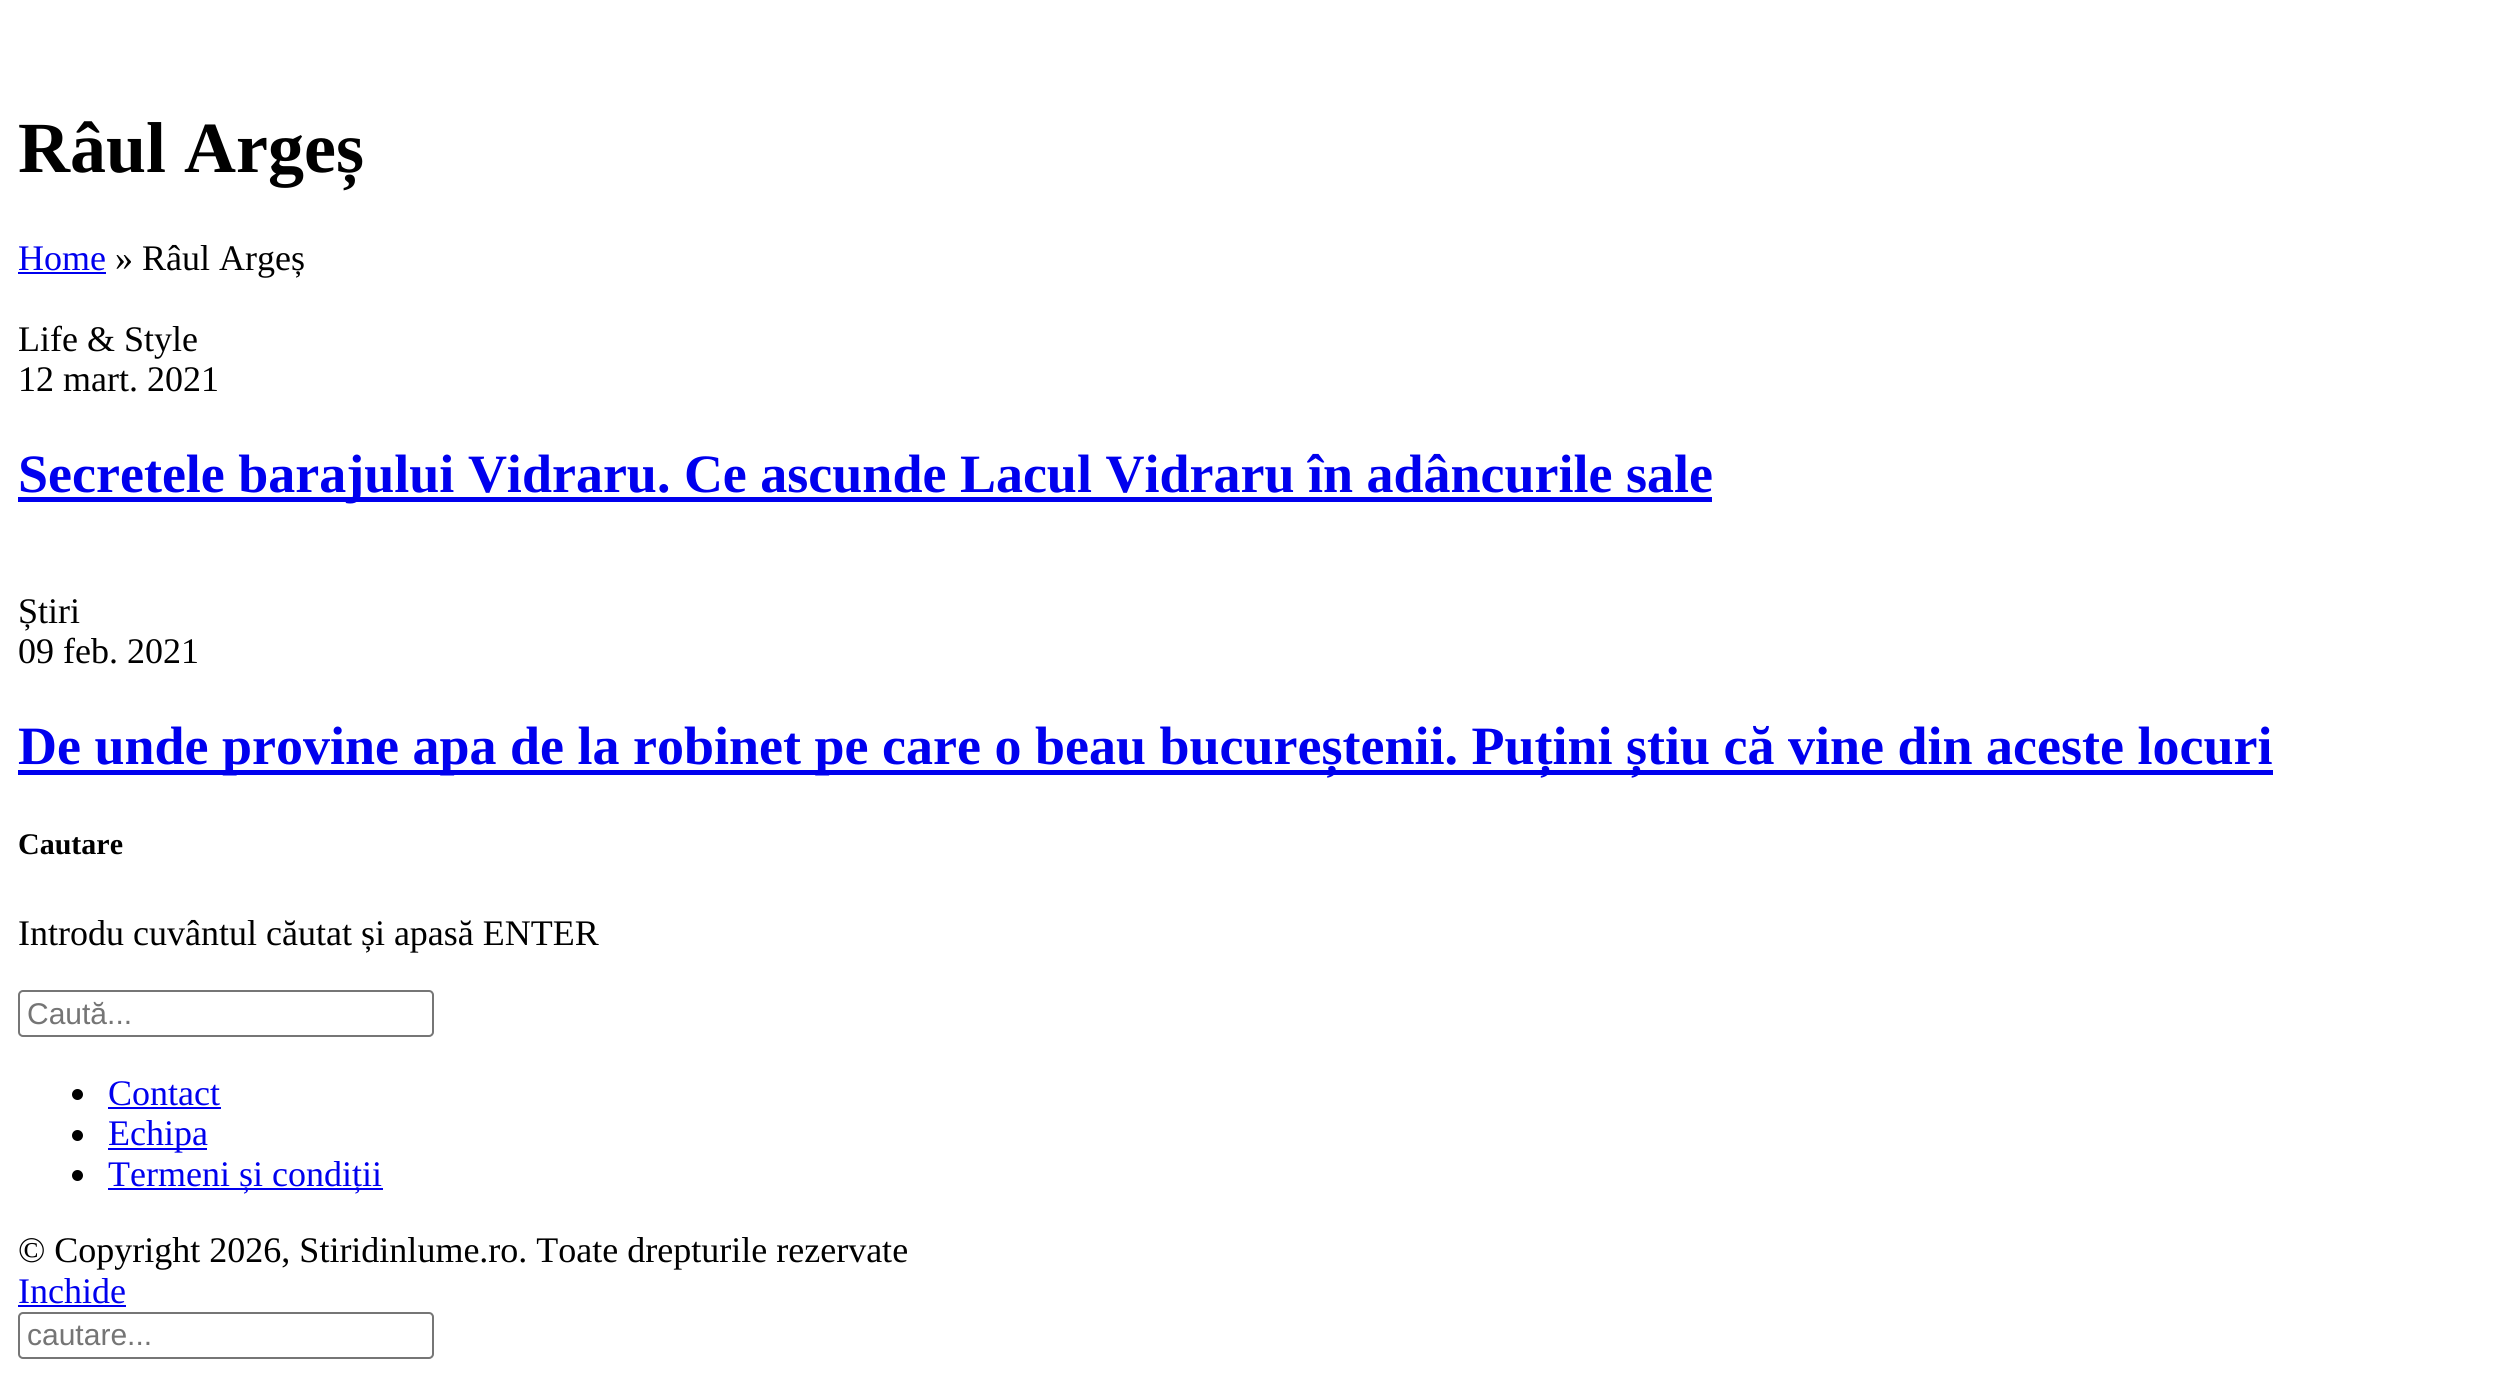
#include <cairo/cairo.h>
#include <math.h>
#include <stddef.h>

typedef struct { double x, y; const char *s; } line_t;
typedef struct { double x, y, w, h; unsigned color; } box_t;
static cairo_t *cr;

static void rgb(unsigned color)
{
	cairo_set_source_rgb(cr, (color >> 16) / 255.0, (color >> 8 & 255) / 255.0, (color & 255) / 255.0);
}

static void rrect(double x, double y, double w, double h, double r)
{
	cairo_new_sub_path(cr);
	cairo_arc(cr, x + w - r, y + h - r, r, 0, M_PI / 2);
	cairo_arc(cr, x + r, y + h - r, r, M_PI / 2, M_PI);
	cairo_arc(cr, x + r, y + r, r, M_PI, 1.5 * M_PI);
	cairo_arc(cr, x + w - r, y + r, r, 1.5 * M_PI, 2 * M_PI);
	cairo_close_path(cr);
}

int main(void) {
	cairo_surface_t *surface = cairo_image_surface_create(CAIRO_FORMAT_RGB24, 2501, 1400);
	cr = cairo_create(surface);
	cairo_font_options_t *options = cairo_font_options_create();
	cairo_font_options_set_hint_metrics(options, CAIRO_HINT_METRICS_OFF);
	cairo_font_options_set_hint_style(options, CAIRO_HINT_STYLE_NONE);
	cairo_set_font_options(cr, options);
	cairo_set_miter_limit(cr, 4);
	rgb(0xffffff);
	cairo_paint(cr);
	{
		static const box_t items[] = {
			{18, 272, 88, 2, 0x0000ee},
			{18, 497, 1694, 5, 0x0000ee},
			{18, 770, 2255, 5, 0x0000ee},
		};
		for (size_t i = 0; i < sizeof items / sizeof *items; i++) {
			rgb(items[i].color);
			cairo_rectangle(cr, items[i].x, items[i].y, items[i].w, items[i].h);
			cairo_fill(cr);
		}
	}
	rrect(19, 991, 414, 45, 4);
	rgb(0x767676);
	cairo_stroke(cr);
	rgb(0x000000);
	cairo_arc(cr, 77.5, 1094.5, 5.5, 0, 2 * M_PI);
	cairo_fill(cr);
	rgb(0x0000ee);
	cairo_rectangle(cr, 108, 1107, 113, 2);
	cairo_fill(cr);
	rgb(0x000000);
	cairo_arc(cr, 77.5, 1135.5, 5.5, 0, 2 * M_PI);
	cairo_fill(cr);
	rgb(0x0000ee);
	cairo_rectangle(cr, 108, 1148, 99, 2);
	cairo_fill(cr);
	rgb(0x000000);
	cairo_arc(cr, 77.5, 1175.5, 5.5, 0, 2 * M_PI);
	cairo_fill(cr);
	rgb(0x0000ee);
	cairo_rectangle(cr, 108, 1188, 275, 2);
	cairo_fill(cr);
	cairo_rectangle(cr, 18, 1305, 108, 2);
	cairo_fill(cr);
	rrect(19, 1313, 414, 45, 4);
	rgb(0x767676);
	cairo_stroke(cr);
	cairo_select_font_face(cr, "Liberation Serif", CAIRO_FONT_SLANT_NORMAL, CAIRO_FONT_WEIGHT_BOLD);
	cairo_set_font_size(cr, 72);
	rgb(0x000000);
	cairo_move_to(cr, 18, 172);
	cairo_show_text(cr, "Râul Argeș");
	cairo_select_font_face(cr, "Liberation Serif", CAIRO_FONT_SLANT_NORMAL, CAIRO_FONT_WEIGHT_NORMAL);
	cairo_set_font_size(cr, 36);
	rgb(0x0000ee);
	cairo_move_to(cr, 18, 270);
	cairo_show_text(cr, "Home");
	rgb(0x000000);
	{
		static const line_t items[] = {
			{115, 270, "» Râul Argeș"},
			{18, 351, "Life & Style"},
			{18, 391, "12 mart. 2021"},
		};
		for (size_t i = 0; i < sizeof items / sizeof *items; i++) {
			cairo_move_to(cr, items[i].x, items[i].y);
			cairo_show_text(cr, items[i].s);
		}
	}
	cairo_select_font_face(cr, "Liberation Serif", CAIRO_FONT_SLANT_NORMAL, CAIRO_FONT_WEIGHT_BOLD);
	cairo_set_font_size(cr, 54);
	rgb(0x0000ee);
	cairo_move_to(cr, 18, 492);
	cairo_show_text(cr, "Secretele barajului Vidraru. Ce ascunde Lacul Vidraru în adâncurile sale");
	cairo_select_font_face(cr, "Liberation Serif", CAIRO_FONT_SLANT_NORMAL, CAIRO_FONT_WEIGHT_NORMAL);
	cairo_set_font_size(cr, 36);
	rgb(0x000000);
	cairo_move_to(cr, 18, 623);
	cairo_show_text(cr, "Știri");
	cairo_move_to(cr, 18, 663);
	cairo_show_text(cr, "09 feb. 2021");
	cairo_select_font_face(cr, "Liberation Serif", CAIRO_FONT_SLANT_NORMAL, CAIRO_FONT_WEIGHT_BOLD);
	cairo_set_font_size(cr, 54);
	rgb(0x0000ee);
	cairo_move_to(cr, 18, 764);
	cairo_show_text(cr, "De unde provine apa de la robinet pe care o beau bucureștenii. Puțini știu că vine din aceste locuri");
	cairo_set_font_size(cr, 30);
	rgb(0x000000);
	cairo_move_to(cr, 18, 854);
	cairo_show_text(cr, "Cautare");
	cairo_select_font_face(cr, "Liberation Serif", CAIRO_FONT_SLANT_NORMAL, CAIRO_FONT_WEIGHT_NORMAL);
	cairo_set_font_size(cr, 36);
	cairo_move_to(cr, 18, 945);
	cairo_show_text(cr, "Introdu cuvântul căutat și apasă ENTER");
	cairo_select_font_face(cr, "Liberation Sans", CAIRO_FONT_SLANT_NORMAL, CAIRO_FONT_WEIGHT_NORMAL);
	cairo_set_font_size(cr, 30);
	rgb(0x757575);
	cairo_move_to(cr, 27, 1024);
	cairo_show_text(cr, "Caută...");
	cairo_select_font_face(cr, "Liberation Serif", CAIRO_FONT_SLANT_NORMAL, CAIRO_FONT_WEIGHT_NORMAL);
	cairo_set_font_size(cr, 36);
	rgb(0x0000ee);
	{
		static const line_t items[] = {
			{108, 1105, "Contact"},
			{108, 1145, "Echipa"},
			{108, 1186, "Termeni și condiții"},
		};
		for (size_t i = 0; i < sizeof items / sizeof *items; i++) {
			cairo_move_to(cr, items[i].x, items[i].y);
			cairo_show_text(cr, items[i].s);
		}
	}
	rgb(0x000000);
	cairo_move_to(cr, 18, 1262);
	cairo_show_text(cr, "© Copyright 2026, Stiridinlume.ro. Toate drepturile rezervate");
	rgb(0x0000ee);
	cairo_move_to(cr, 18, 1303);
	cairo_show_text(cr, "Inchide");
	cairo_select_font_face(cr, "Liberation Sans", CAIRO_FONT_SLANT_NORMAL, CAIRO_FONT_WEIGHT_NORMAL);
	cairo_set_font_size(cr, 30);
	rgb(0x757575);
	cairo_move_to(cr, 27, 1345);
	cairo_show_text(cr, "cautare...");
	cairo_surface_write_to_png(surface, "page.png");
	cairo_font_options_destroy(options);
	cairo_destroy(cr);
	cairo_surface_destroy(surface);
	return 0;
}
